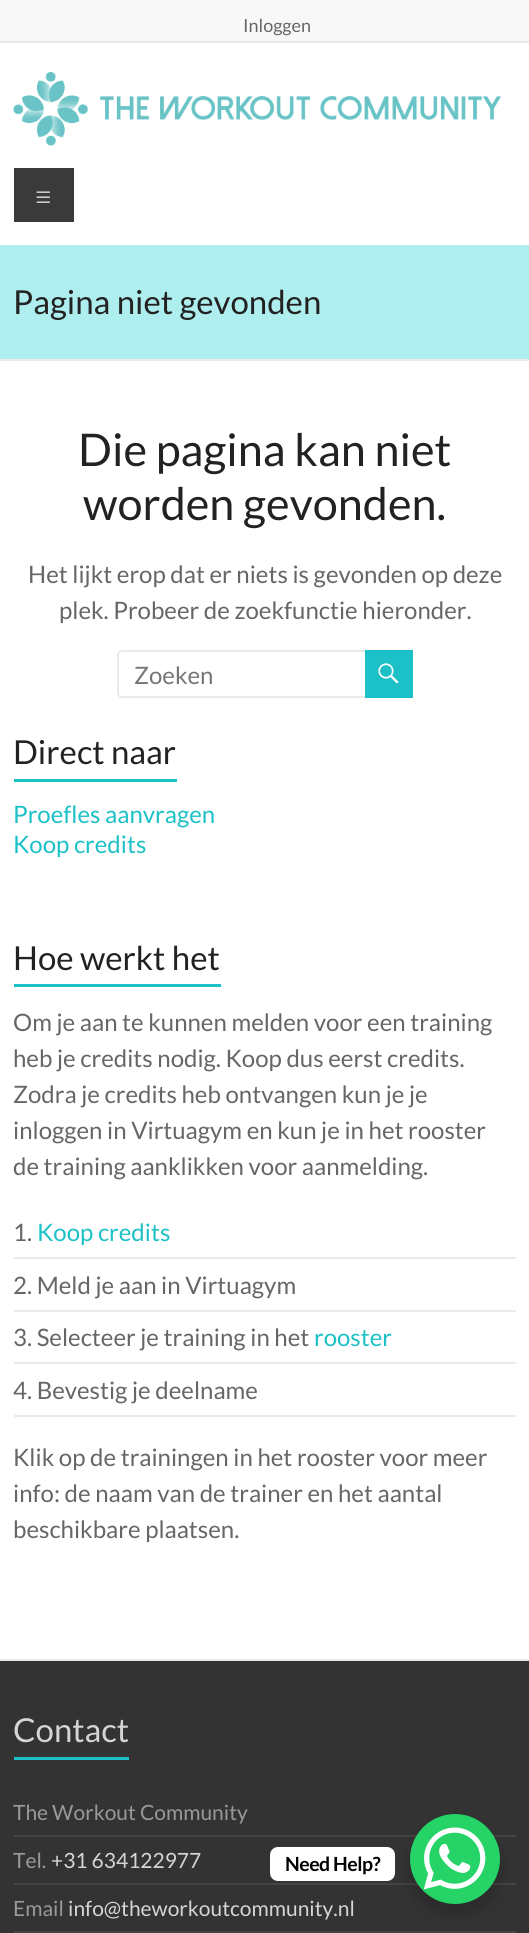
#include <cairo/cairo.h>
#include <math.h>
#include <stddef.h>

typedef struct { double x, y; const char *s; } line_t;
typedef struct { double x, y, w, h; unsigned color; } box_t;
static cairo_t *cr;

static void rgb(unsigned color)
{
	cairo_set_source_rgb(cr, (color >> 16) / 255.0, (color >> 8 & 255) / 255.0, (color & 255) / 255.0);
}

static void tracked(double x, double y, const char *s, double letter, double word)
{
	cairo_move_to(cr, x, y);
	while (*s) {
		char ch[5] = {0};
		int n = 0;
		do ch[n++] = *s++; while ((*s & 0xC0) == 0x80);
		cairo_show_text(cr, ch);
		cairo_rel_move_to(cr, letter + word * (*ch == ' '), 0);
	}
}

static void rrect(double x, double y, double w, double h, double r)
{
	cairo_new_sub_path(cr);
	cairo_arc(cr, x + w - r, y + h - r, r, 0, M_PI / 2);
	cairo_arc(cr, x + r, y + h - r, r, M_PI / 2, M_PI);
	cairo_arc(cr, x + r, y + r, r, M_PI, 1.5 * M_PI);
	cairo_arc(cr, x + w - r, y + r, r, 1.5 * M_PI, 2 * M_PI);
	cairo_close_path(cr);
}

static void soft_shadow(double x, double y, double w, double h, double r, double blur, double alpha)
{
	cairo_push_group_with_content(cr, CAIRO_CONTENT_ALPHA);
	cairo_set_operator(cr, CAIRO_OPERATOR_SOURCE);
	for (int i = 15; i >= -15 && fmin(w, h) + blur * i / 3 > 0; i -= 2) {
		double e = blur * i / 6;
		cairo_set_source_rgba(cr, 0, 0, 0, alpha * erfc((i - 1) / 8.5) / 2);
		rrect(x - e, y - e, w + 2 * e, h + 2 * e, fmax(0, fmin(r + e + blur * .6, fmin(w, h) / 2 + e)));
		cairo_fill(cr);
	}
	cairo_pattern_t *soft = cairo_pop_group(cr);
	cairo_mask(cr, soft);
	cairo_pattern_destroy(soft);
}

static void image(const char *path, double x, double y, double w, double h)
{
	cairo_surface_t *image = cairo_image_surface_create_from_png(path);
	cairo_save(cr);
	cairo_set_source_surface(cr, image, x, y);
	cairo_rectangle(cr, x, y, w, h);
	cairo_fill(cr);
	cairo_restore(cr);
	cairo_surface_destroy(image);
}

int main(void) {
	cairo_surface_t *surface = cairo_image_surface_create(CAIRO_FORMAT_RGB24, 529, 1933);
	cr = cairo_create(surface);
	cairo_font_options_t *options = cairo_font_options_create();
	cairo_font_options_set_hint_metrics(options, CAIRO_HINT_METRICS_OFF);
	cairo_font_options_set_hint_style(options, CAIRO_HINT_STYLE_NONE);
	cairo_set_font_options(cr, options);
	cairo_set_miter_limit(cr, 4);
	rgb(0xffffff);
	cairo_paint(cr);
	rgb(0xf8f8f8);
	cairo_rectangle(cr, 0, 0, 529, 41);
	cairo_fill(cr);
	rgb(0xeaeaea);
	cairo_rectangle(cr, 0, 41, 529, 2);
	cairo_fill(cr);
	image("img/1.png", 13, 72, 488, 74);
	{
		static const box_t items[] = {
			{14, 168, 60, 54, 0x3a3a3a},
			{0, 245, 529, 114, 0xafeeee},
			{0, 359, 529, 2, 0xeaeaea},
		};
		for (size_t i = 0; i < sizeof items / sizeof *items; i++) {
			rgb(items[i].color);
			cairo_rectangle(cr, items[i].x, items[i].y, items[i].w, items[i].h);
			cairo_fill(cr);
		}
	}
	rrect(118, 651, 250, 46, 4);
	cairo_stroke(cr);
	rgb(0x1bc1c6);
	cairo_rectangle(cr, 365, 650, 48, 48);
	cairo_fill(cr);
	image("img/2.png", 378, 663, 21, 21);
	{
		static const box_t items[] = {
			{14, 779, 163, 3, 0x1bc1c6},
			{14, 984, 207, 3, 0x1bc1c6},
			{14, 1257, 502, 2, 0xeaeaea},
			{14, 1310, 502, 2, 0xeaeaea},
			{14, 1362, 502, 2, 0xeaeaea},
			{14, 1415, 502, 2, 0xeaeaea},
			{0, 1661, 529, 272, 0x333333},
			{0, 1659, 529, 2, 0xeaeaea},
			{14, 1757, 115, 3, 0x1bc1c6},
			{14, 1835, 502, 2, 0x444444},
			{14, 1883, 502, 2, 0x444444},
			{14, 1931, 502, 2, 0x444444},
		};
		for (size_t i = 0; i < sizeof items / sizeof *items; i++) {
			rgb(items[i].color);
			cairo_rectangle(cr, items[i].x, items[i].y, items[i].w, items[i].h);
			cairo_fill(cr);
		}
	}
	rgb(0x000000);
	soft_shadow(407, 1820, 96, 96, 48, 6, 0.15);
	rgb(0xffffff);
	rrect(270, 1847, 125, 34, 8);
	cairo_fill(cr);
	rgb(0x25d366);
	cairo_arc(cr, 455, 1859, 45, 0, 2 * M_PI);
	cairo_fill(cr);
	image("img/3.png", 423, 1827, 63, 63);
	cairo_select_font_face(cr, "Lato", CAIRO_FONT_SLANT_NORMAL, CAIRO_FONT_WEIGHT_NORMAL);
	cairo_set_font_size(cr, 18);
	rgb(0x666666);
	cairo_move_to(cr, 243, 32);
	cairo_show_text(cr, "Inloggen");
	cairo_select_font_face(cr, "Lato Light", CAIRO_FONT_SLANT_NORMAL, CAIRO_FONT_WEIGHT_NORMAL);
	cairo_set_font_size(cr, 32);
	rgb(0xffffff);
	cairo_move_to(cr, 34, 208);
	cairo_show_text(cr, "≡");
	cairo_select_font_face(cr, "Lato", CAIRO_FONT_SLANT_NORMAL, CAIRO_FONT_WEIGHT_NORMAL);
	cairo_set_font_size(cr, 33);
	rgb(0x222222);
	cairo_move_to(cr, 13, 314);
	cairo_show_text(cr, "Pagina niet gevonden");
	cairo_set_font_size(cr, 45);
	cairo_move_to(cr, 78, 466);
	cairo_show_text(cr, "Die pagina kan niet");
	cairo_move_to(cr, 83, 520);
	cairo_show_text(cr, "worden gevonden.");
	cairo_set_font_size(cr, 24);
	rgb(0x666666);
	cairo_move_to(cr, 28, 583);
	cairo_show_text(cr, "Het lijkt erop dat er niets is gevonden op deze");
	cairo_move_to(cr, 59, 619);
	cairo_show_text(cr, "plek. Probeer de zoekfunctie hieronder.");
	rgb(0x757575);
	cairo_move_to(cr, 134, 684);
	cairo_show_text(cr, "Zoeken");
	cairo_set_font_size(cr, 33);
	rgb(0x222222);
	cairo_move_to(cr, 13, 764);
	cairo_show_text(cr, "Direct naar");
	cairo_set_font_size(cr, 24);
	rgb(0x1bc1c6);
	cairo_move_to(cr, 13, 823);
	cairo_show_text(cr, "Proefles aanvragen");
	cairo_move_to(cr, 13, 853);
	cairo_show_text(cr, "Koop credits");
	cairo_set_font_size(cr, 33);
	rgb(0x222222);
	cairo_move_to(cr, 13, 970);
	cairo_show_text(cr, "Hoe werkt het");
	cairo_set_font_size(cr, 24);
	rgb(0x666666);
	{
		static const line_t items[] = {
			{13, 1031, "Om je aan te kunnen melden voor een training"},
			{13, 1067, "heb je credits nodig. Koop dus eerst credits."},
			{13, 1103, "Zodra je credits heb ontvangen kun je je"},
			{13, 1139, "inloggen in Virtuagym en kun je in het rooster"},
			{13, 1175, "de training aanklikken voor aanmelding."},
			{13, 1241, "1."},
		};
		for (size_t i = 0; i < sizeof items / sizeof *items; i++) {
			cairo_move_to(cr, items[i].x, items[i].y);
			cairo_show_text(cr, items[i].s);
		}
	}
	rgb(0x1bc1c6);
	cairo_move_to(cr, 37, 1241);
	cairo_show_text(cr, "Koop credits");
	rgb(0x666666);
	cairo_move_to(cr, 13, 1294);
	cairo_show_text(cr, "2. Meld je aan in Virtuagym");
	cairo_move_to(cr, 13, 1346);
	cairo_show_text(cr, "3. Selecteer je training in het");
	rgb(0x1bc1c6);
	cairo_move_to(cr, 314, 1346);
	cairo_show_text(cr, "rooster");
	rgb(0x666666);
	{
		static const line_t items[] = {
			{13, 1399, "4. Bevestig je deelname"},
			{13, 1466, "Klik op de trainingen in het rooster voor meer"},
			{13, 1502, "info: de naam van de trainer en het aantal"},
			{13, 1538, "beschikbare plaatsen."},
		};
		for (size_t i = 0; i < sizeof items / sizeof *items; i++) {
			cairo_move_to(cr, items[i].x, items[i].y);
			cairo_show_text(cr, items[i].s);
		}
	}
	cairo_set_font_size(cr, 33);
	rgb(0xd5d5d5);
	cairo_move_to(cr, 13, 1742);
	cairo_show_text(cr, "Contact");
	cairo_set_font_size(cr, 21);
	rgb(0x999999);
	cairo_move_to(cr, 13, 1820);
	cairo_show_text(cr, "The Workout Community");
	cairo_move_to(cr, 13, 1868);
	cairo_show_text(cr, "Tel.");
	rgb(0xd5d5d5);
	cairo_move_to(cr, 51, 1868);
	cairo_show_text(cr, "+31 634122977");
	rgb(0x999999);
	cairo_move_to(cr, 13, 1916);
	cairo_show_text(cr, "Email");
	rgb(0xd5d5d5);
	cairo_move_to(cr, 68, 1916);
	cairo_show_text(cr, "info@theworkoutcommunity.nl");
	cairo_select_font_face(cr, "Lato", CAIRO_FONT_SLANT_NORMAL, CAIRO_FONT_WEIGHT_BOLD);
	cairo_set_font_size(cr, 19.5);
	rgb(0x000000);
	tracked(285, 1871, "Need Help?", -0.5, 0);
	cairo_surface_write_to_png(surface, "page.png");
	cairo_font_options_destroy(options);
	cairo_destroy(cr);
	cairo_surface_destroy(surface);
	return 0;
}
